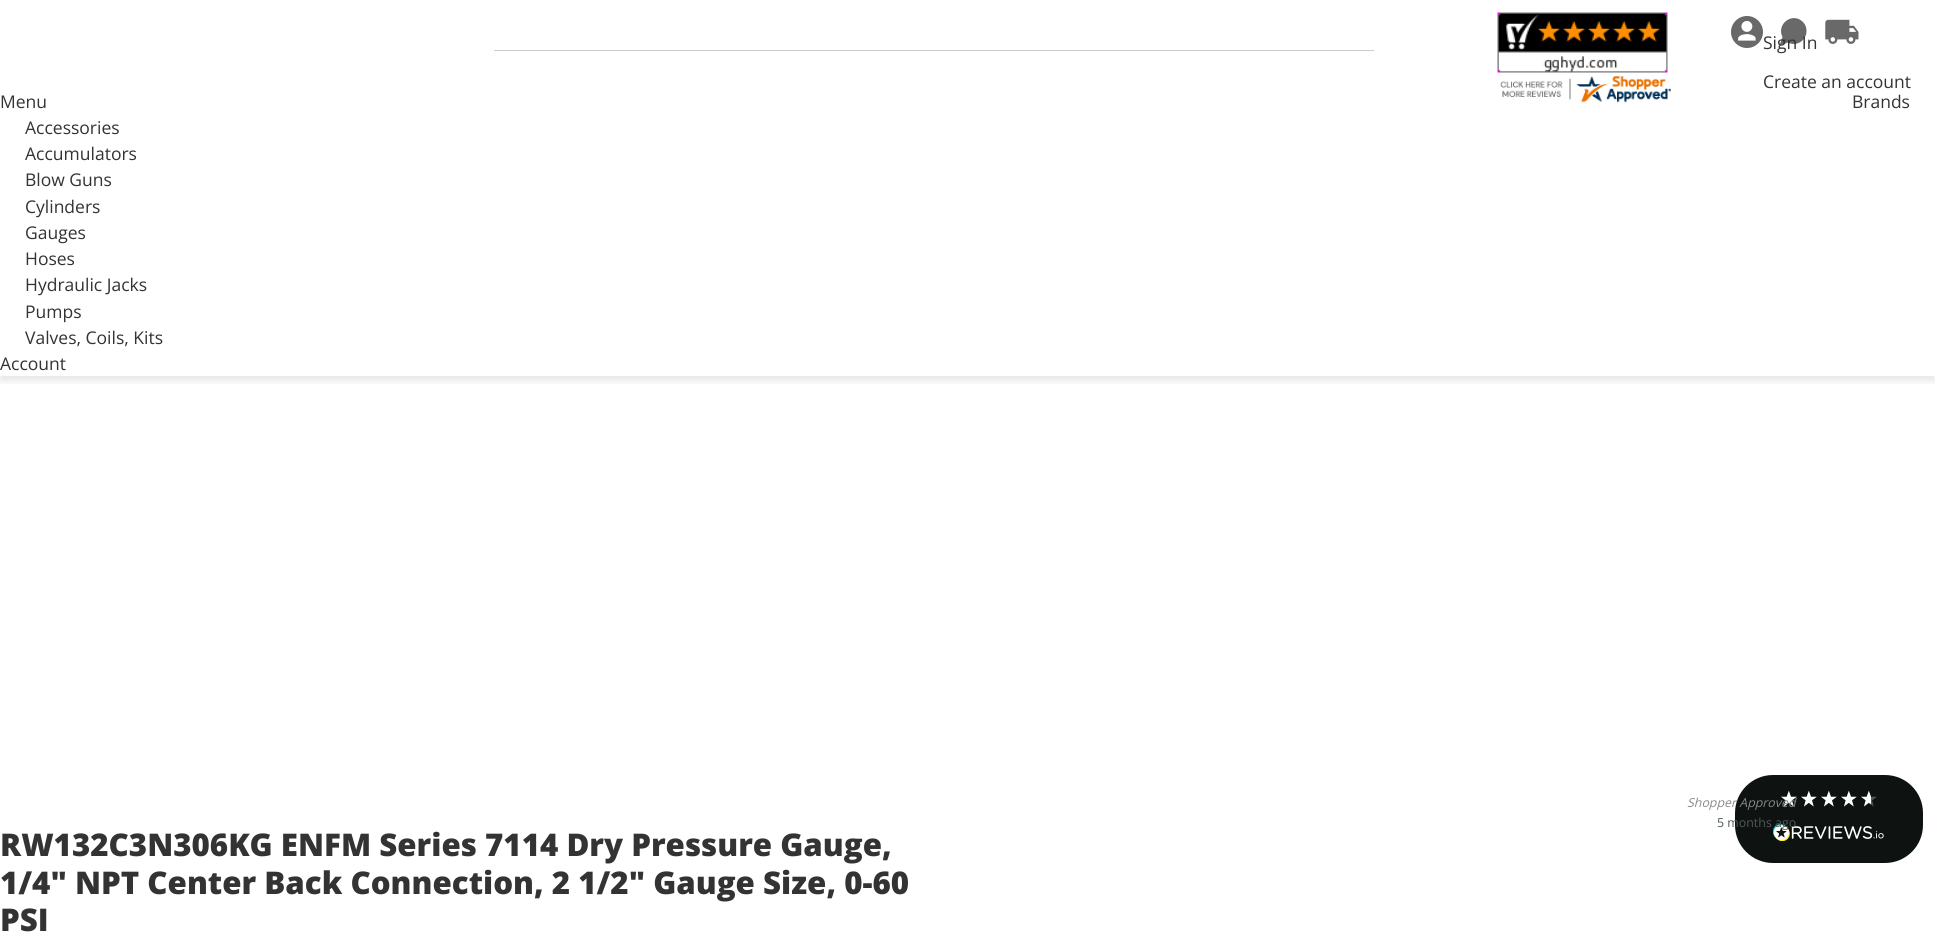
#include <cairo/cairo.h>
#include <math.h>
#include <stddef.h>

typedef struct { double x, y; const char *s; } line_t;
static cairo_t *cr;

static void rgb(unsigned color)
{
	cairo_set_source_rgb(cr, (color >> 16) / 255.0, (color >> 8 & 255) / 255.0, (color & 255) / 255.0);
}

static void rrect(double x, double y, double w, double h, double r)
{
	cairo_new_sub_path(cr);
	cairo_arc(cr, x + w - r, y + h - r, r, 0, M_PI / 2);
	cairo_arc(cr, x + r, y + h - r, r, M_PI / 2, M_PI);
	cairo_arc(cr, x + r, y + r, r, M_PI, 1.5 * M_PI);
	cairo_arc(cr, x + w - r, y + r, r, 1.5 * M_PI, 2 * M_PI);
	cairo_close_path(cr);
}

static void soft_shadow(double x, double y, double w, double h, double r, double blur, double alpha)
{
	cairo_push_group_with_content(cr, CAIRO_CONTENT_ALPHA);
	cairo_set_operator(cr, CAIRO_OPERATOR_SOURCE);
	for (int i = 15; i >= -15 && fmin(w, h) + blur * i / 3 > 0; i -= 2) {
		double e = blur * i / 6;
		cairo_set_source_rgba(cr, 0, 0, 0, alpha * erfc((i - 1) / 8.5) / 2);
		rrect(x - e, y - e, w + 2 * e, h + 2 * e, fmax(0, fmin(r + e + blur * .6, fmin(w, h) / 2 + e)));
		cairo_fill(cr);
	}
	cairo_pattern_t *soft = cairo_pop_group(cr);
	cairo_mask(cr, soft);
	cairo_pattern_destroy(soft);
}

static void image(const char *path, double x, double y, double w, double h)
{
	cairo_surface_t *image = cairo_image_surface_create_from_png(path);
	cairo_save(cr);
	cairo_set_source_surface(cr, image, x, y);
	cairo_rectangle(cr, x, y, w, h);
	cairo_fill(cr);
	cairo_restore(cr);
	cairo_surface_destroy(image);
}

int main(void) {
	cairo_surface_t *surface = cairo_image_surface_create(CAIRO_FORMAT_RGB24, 1935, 950);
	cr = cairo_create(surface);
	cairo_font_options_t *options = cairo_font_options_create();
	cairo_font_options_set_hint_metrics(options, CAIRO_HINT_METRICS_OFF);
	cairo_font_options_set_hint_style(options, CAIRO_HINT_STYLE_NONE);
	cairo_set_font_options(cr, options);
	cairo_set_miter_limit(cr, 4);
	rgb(0xffffff);
	cairo_paint(cr);
	image("img/1.png", 1497, 12, 171, 61);
	cairo_save(cr);
	cairo_rectangle(cr, 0, 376, 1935, 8);
	cairo_clip(cr);
	rgb(0x000000);
	soft_shadow(0, 93, 1935, 288, 0, 4, 0.1);
	cairo_restore(cr);
	image("img/2.png", 1500, 76, 171, 27);
	rgb(0x696969);
	cairo_new_path(cr);
	cairo_move_to(cr, 1806.5, 31);
	cairo_curve_to(cr, 1806.5, 40.5, 1796.5, 47, 1788, 42.5);
	cairo_line_to(cr, 1779.5, 45.5);
	cairo_line_to(cr, 1782.5, 37);
	cairo_curve_to(cr, 1776, 24, 1792.5, 11.5, 1803, 22);
	cairo_curve_to(cr, 1805.5, 24.5, 1806.5, 27.5, 1806.5, 31);
	cairo_close_path(cr);
	cairo_fill(cr);
	image("img/3.png", 1825, 19, 34, 25);
	rgb(0xcccccc);
	cairo_rectangle(cr, 494, 50, 880, 1);
	cairo_fill(cr);
	rgb(0x696969);
	cairo_arc(cr, 1747, 32, 16, 0, 2 * M_PI);
	cairo_fill(cr);
	image("img/4.png", 1738, 20, 18, 21);
	rgb(0x0e1311);
	rrect(1735, 775, 188, 88, 38);
	cairo_fill(cr);
	image("img/5.png", 1781, 790, 16, 17);
	image("img/5.png", 1801, 790, 16, 17);
	image("img/5.png", 1821, 790, 16, 17);
	image("img/5.png", 1841, 790, 16, 17);
	image("img/6.png", 1861, 790, 16, 17);
	image("img/7.png", 1773, 824, 111, 17);
	cairo_select_font_face(cr, "Open Sans", CAIRO_FONT_SLANT_NORMAL, CAIRO_FONT_WEIGHT_NORMAL);
	cairo_set_font_size(cr, 17.5);
	rgb(0x333333);
	{
		static const line_t items[] = {
			{1763, 49, "Sign In"},
			{1763, 88, "Create an account"},
			{0, 108, "Menu"},
			{1852, 108, "Brands"},
			{25, 134, "Accessories"},
			{25, 160, "Accumulators"},
			{25, 186, "Blow Guns"},
			{25, 213, "Cylinders"},
			{25, 239, "Gauges"},
			{25, 265, "Hoses"},
			{25, 291, "Hydraulic Jacks"},
			{25, 318, "Pumps"},
			{25, 344, "Valves, Coils, Kits"},
			{0, 370, "Account"},
		};
		for (size_t i = 0; i < sizeof items / sizeof *items; i++) {
			cairo_move_to(cr, items[i].x, items[i].y);
			cairo_show_text(cr, items[i].s);
		}
	}
	cairo_select_font_face(cr, "Open Sans ExtraBold", CAIRO_FONT_SLANT_NORMAL, CAIRO_FONT_WEIGHT_NORMAL);
	cairo_set_font_size(cr, 31.25);
	{
		static const line_t items[] = {
			{0, 856, "RW132C3N306KG ENFM Series 7114 Dry Pressure Gauge,"},
			{0, 894, "1/4\" NPT Center Back Connection, 2 1/2\" Gauge Size, 0-60"},
			{0, 931, "PSI"},
		};
		for (size_t i = 0; i < sizeof items / sizeof *items; i++) {
			cairo_move_to(cr, items[i].x, items[i].y);
			cairo_show_text(cr, items[i].s);
		}
	}
	cairo_select_font_face(cr, "Open Sans", CAIRO_FONT_SLANT_ITALIC, CAIRO_FONT_WEIGHT_NORMAL);
	cairo_set_font_size(cr, 12.4);
	rgb(0x878988);
	cairo_move_to(cr, 1687, 807);
	cairo_show_text(cr, "Shopper Approved");
	cairo_select_font_face(cr, "Open Sans", CAIRO_FONT_SLANT_NORMAL, CAIRO_FONT_WEIGHT_NORMAL);
	rgb(0x505957);
	cairo_move_to(cr, 1717, 827);
	cairo_show_text(cr, "5 months ago");
	cairo_surface_write_to_png(surface, "page.png");
	cairo_font_options_destroy(options);
	cairo_destroy(cr);
	cairo_surface_destroy(surface);
	return 0;
}
